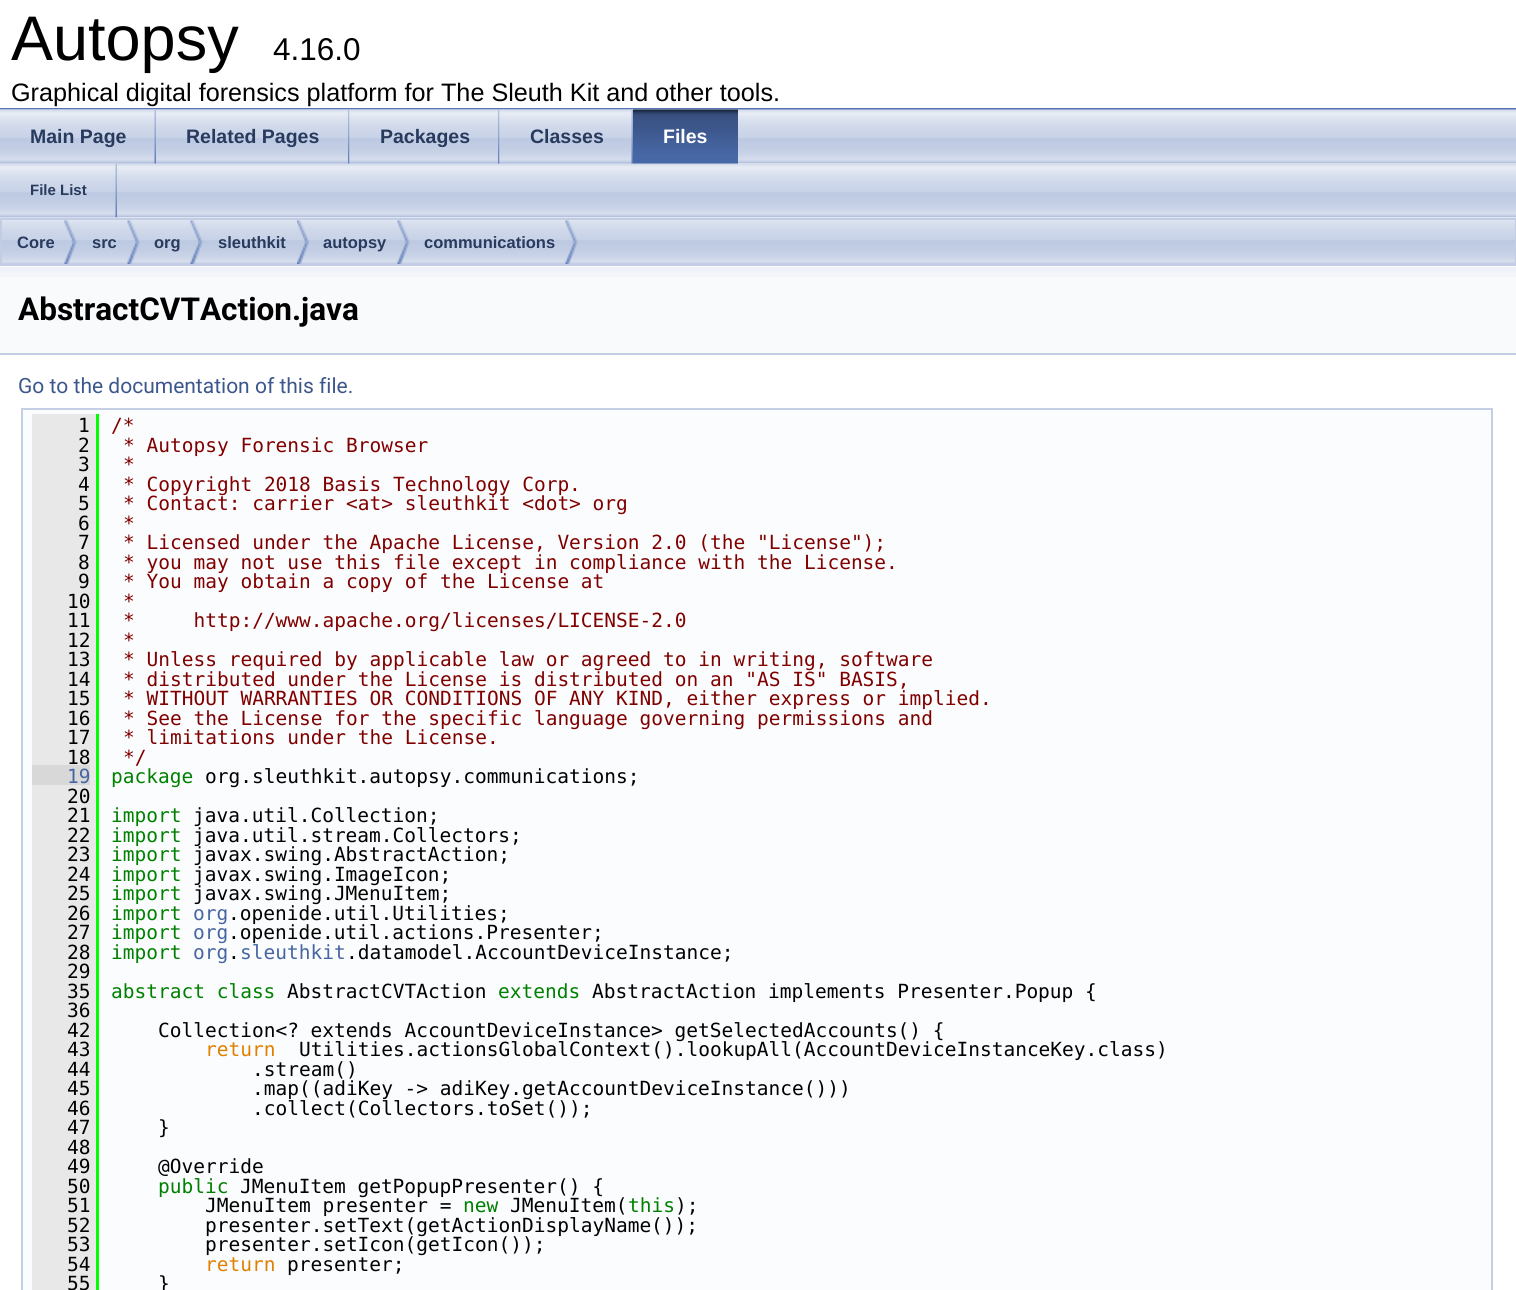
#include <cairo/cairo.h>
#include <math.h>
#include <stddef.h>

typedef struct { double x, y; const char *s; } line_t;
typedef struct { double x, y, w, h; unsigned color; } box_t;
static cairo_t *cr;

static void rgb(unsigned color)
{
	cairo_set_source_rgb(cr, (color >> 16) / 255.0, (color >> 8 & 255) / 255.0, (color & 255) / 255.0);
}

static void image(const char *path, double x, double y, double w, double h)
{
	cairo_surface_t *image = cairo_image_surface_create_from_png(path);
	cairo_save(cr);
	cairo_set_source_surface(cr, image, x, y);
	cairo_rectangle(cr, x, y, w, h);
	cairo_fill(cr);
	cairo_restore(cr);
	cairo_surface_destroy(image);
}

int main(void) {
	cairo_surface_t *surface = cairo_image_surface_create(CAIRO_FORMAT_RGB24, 1516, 1290);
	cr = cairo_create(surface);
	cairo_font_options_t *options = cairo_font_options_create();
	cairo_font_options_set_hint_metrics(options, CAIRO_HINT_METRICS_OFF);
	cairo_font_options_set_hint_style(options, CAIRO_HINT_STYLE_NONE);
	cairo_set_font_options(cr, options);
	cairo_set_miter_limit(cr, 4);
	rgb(0xffffff);
	cairo_paint(cr);
	rgb(0x5373b4);
	cairo_rectangle(cr, 0, 108, 1516, 2);
	cairo_fill(cr);
	image("img/1.png", 0, 109, 1516, 55);
	image("img/2.png", 0, 109, 156, 55);
	image("img/3.png", 154, 110, 2, 54);
	image("img/4.png", 156, 109, 194, 55);
	image("img/5.png", 348, 110, 2, 54);
	image("img/6.png", 349, 109, 151, 55);
	image("img/5.png", 498, 110, 2, 54);
	image("img/7.png", 499, 109, 134, 55);
	image("img/3.png", 631, 110, 2, 54);
	image("img/8.png", 633, 109, 105, 55);
	image("img/9.png", 633, 109, 105, 55);
	image("img/10.png", 0, 164, 1516, 54);
	image("img/11.png", 0, 163, 117, 55);
	image("img/12.png", 115, 163, 2, 55);
	image("img/13.png", 0, 217, 1516, 47);
	cairo_rectangle(cr, 1, 219, 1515, 46);
	rgb(0xc2cde4);
	cairo_stroke(cr);
	image("img/14.png", 64, 220, 13, 44);
	image("img/14.png", 127, 220, 13, 44);
	image("img/14.png", 190, 220, 13, 44);
	image("img/15.png", 297, 220, 12, 44);
	image("img/16.png", 397, 220, 13, 44);
	image("img/16.png", 565, 220, 13, 44);
	rgb(0xf9fafc);
	cairo_rectangle(cr, 0, 266, 1516, 87);
	cairo_fill(cr);
	image("img/17.png", 0, 267, 1516, 10);
	rgb(0xc4cfe5);
	cairo_rectangle(cr, 0, 353, 1516, 2);
	cairo_fill(cr);
	rgb(0xfbfcfd);
	cairo_rectangle(cr, 22, 409, 1470, 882);
	cairo_fill_preserve(cr);
	rgb(0xc4cfe5);
	cairo_stroke(cr);
	{
		static const box_t items[] = {
			{32, 414, 64, 351, 0xe8e8e8},
			{96, 414, 3, 876, 0x00ff00},
			{90, 765, 6, 20, 0xe8e8e8},
			{32, 765, 58, 20, 0xd8d8d8},
			{32, 785, 64, 505, 0xe8e8e8},
		};
		for (size_t i = 0; i < sizeof items / sizeof *items; i++) {
			rgb(items[i].color);
			cairo_rectangle(cr, items[i].x, items[i].y, items[i].w, items[i].h);
			cairo_fill(cr);
		}
	}
	cairo_select_font_face(cr, "Liberation Sans", CAIRO_FONT_SLANT_NORMAL, CAIRO_FONT_WEIGHT_NORMAL);
	cairo_set_font_size(cr, 63);
	rgb(0x000000);
	cairo_move_to(cr, 11, 60);
	cairo_show_text(cr, "Autopsy");
	cairo_set_font_size(cr, 31.5);
	cairo_move_to(cr, 273, 60);
	cairo_show_text(cr, "4.16.0");
	cairo_set_font_size(cr, 25.2);
	cairo_move_to(cr, 11, 101);
	cairo_show_text(cr, "Graphical digital forensics platform for The Sleuth Kit and other tools.");
	cairo_select_font_face(cr, "Liberation Sans", CAIRO_FONT_SLANT_NORMAL, CAIRO_FONT_WEIGHT_BOLD);
	cairo_set_font_size(cr, 19.5);
	rgb(0x283a5d);
	{
		static const line_t items[] = {
			{30, 143, "Main Page"},
			{186, 143, "Related Pages"},
			{380, 143, "Packages"},
			{530, 143, "Classes"},
		};
		for (size_t i = 0; i < sizeof items / sizeof *items; i++) {
			cairo_move_to(cr, items[i].x, items[i].y);
			cairo_show_text(cr, items[i].s);
		}
	}
	rgb(0xffffff);
	cairo_move_to(cr, 663, 143);
	cairo_show_text(cr, "Files");
	cairo_set_font_size(cr, 15);
	rgb(0x283a5d);
	cairo_move_to(cr, 30, 195);
	cairo_show_text(cr, "File List");
	cairo_set_font_size(cr, 16.5);
	{
		static const line_t items[] = {
			{17, 248, "Core"},
			{92, 248, "src"},
			{154, 248, "org"},
			{218, 248, "sleuthkit"},
			{323, 248, "autopsy"},
			{424, 248, "communications"},
		};
		for (size_t i = 0; i < sizeof items / sizeof *items; i++) {
			cairo_move_to(cr, items[i].x, items[i].y);
			cairo_show_text(cr, items[i].s);
		}
	}
	cairo_select_font_face(cr, "Roboto", CAIRO_FONT_SLANT_NORMAL, CAIRO_FONT_WEIGHT_BOLD);
	cairo_set_font_size(cr, 31.5);
	rgb(0x000000);
	cairo_move_to(cr, 18, 320);
	cairo_show_text(cr, "AbstractCVTAction.java");
	cairo_select_font_face(cr, "Roboto", CAIRO_FONT_SLANT_NORMAL, CAIRO_FONT_WEIGHT_NORMAL);
	cairo_set_font_size(cr, 21);
	rgb(0x3d578c);
	cairo_move_to(cr, 18, 393);
	cairo_show_text(cr, "Go to the documentation of this file.");
	cairo_select_font_face(cr, "DejaVu Sans Mono", CAIRO_FONT_SLANT_NORMAL, CAIRO_FONT_WEIGHT_NORMAL);
	cairo_set_font_size(cr, 19.5);
	rgb(0x000000);
	cairo_move_to(cr, 78, 432);
	cairo_show_text(cr, "1");
	rgb(0x800000);
	cairo_move_to(cr, 111, 432);
	cairo_show_text(cr, "/*");
	rgb(0x000000);
	cairo_move_to(cr, 78, 452);
	cairo_show_text(cr, "2");
	rgb(0x800000);
	cairo_move_to(cr, 123, 452);
	cairo_show_text(cr, "* Autopsy Forensic Browser");
	rgb(0x000000);
	cairo_move_to(cr, 78, 471);
	cairo_show_text(cr, "3");
	rgb(0x800000);
	cairo_move_to(cr, 123, 471);
	cairo_show_text(cr, "*");
	rgb(0x000000);
	cairo_move_to(cr, 78, 491);
	cairo_show_text(cr, "4");
	rgb(0x800000);
	cairo_move_to(cr, 123, 491);
	cairo_show_text(cr, "* Copyright 2018 Basis Technology Corp.");
	rgb(0x000000);
	cairo_move_to(cr, 78, 510);
	cairo_show_text(cr, "5");
	rgb(0x800000);
	cairo_move_to(cr, 123, 510);
	cairo_show_text(cr, "* Contact: carrier <at> sleuthkit <dot> org");
	rgb(0x000000);
	cairo_move_to(cr, 78, 530);
	cairo_show_text(cr, "6");
	rgb(0x800000);
	cairo_move_to(cr, 123, 530);
	cairo_show_text(cr, "*");
	rgb(0x000000);
	cairo_move_to(cr, 78, 549);
	cairo_show_text(cr, "7");
	rgb(0x800000);
	cairo_move_to(cr, 123, 549);
	cairo_show_text(cr, "* Licensed under the Apache License, Version 2.0 (the \"License\");");
	rgb(0x000000);
	cairo_move_to(cr, 78, 569);
	cairo_show_text(cr, "8");
	rgb(0x800000);
	cairo_move_to(cr, 123, 569);
	cairo_show_text(cr, "* you may not use this file except in compliance with the License.");
	rgb(0x000000);
	cairo_move_to(cr, 78, 588);
	cairo_show_text(cr, "9");
	rgb(0x800000);
	cairo_move_to(cr, 123, 588);
	cairo_show_text(cr, "* You may obtain a copy of the License at");
	rgb(0x000000);
	cairo_move_to(cr, 67, 608);
	cairo_show_text(cr, "10");
	rgb(0x800000);
	cairo_move_to(cr, 123, 608);
	cairo_show_text(cr, "*");
	rgb(0x000000);
	cairo_move_to(cr, 67, 627);
	cairo_show_text(cr, "11");
	rgb(0x800000);
	cairo_move_to(cr, 123, 627);
	cairo_show_text(cr, "*     http://www.apache.org/licenses/LICENSE-2.0");
	rgb(0x000000);
	cairo_move_to(cr, 67, 647);
	cairo_show_text(cr, "12");
	rgb(0x800000);
	cairo_move_to(cr, 123, 647);
	cairo_show_text(cr, "*");
	rgb(0x000000);
	cairo_move_to(cr, 67, 666);
	cairo_show_text(cr, "13");
	rgb(0x800000);
	cairo_move_to(cr, 123, 666);
	cairo_show_text(cr, "* Unless required by applicable law or agreed to in writing, software");
	rgb(0x000000);
	cairo_move_to(cr, 67, 686);
	cairo_show_text(cr, "14");
	rgb(0x800000);
	cairo_move_to(cr, 123, 686);
	cairo_show_text(cr, "* distributed under the License is distributed on an \"AS IS\" BASIS,");
	rgb(0x000000);
	cairo_move_to(cr, 67, 705);
	cairo_show_text(cr, "15");
	rgb(0x800000);
	cairo_move_to(cr, 123, 705);
	cairo_show_text(cr, "* WITHOUT WARRANTIES OR CONDITIONS OF ANY KIND, either express or implied.");
	rgb(0x000000);
	cairo_move_to(cr, 67, 725);
	cairo_show_text(cr, "16");
	rgb(0x800000);
	cairo_move_to(cr, 123, 725);
	cairo_show_text(cr, "* See the License for the specific language governing permissions and");
	rgb(0x000000);
	cairo_move_to(cr, 67, 744);
	cairo_show_text(cr, "17");
	rgb(0x800000);
	cairo_move_to(cr, 123, 744);
	cairo_show_text(cr, "* limitations under the License.");
	rgb(0x000000);
	cairo_move_to(cr, 67, 764);
	cairo_show_text(cr, "18");
	rgb(0x800000);
	cairo_move_to(cr, 123, 764);
	cairo_show_text(cr, "*/");
	rgb(0x4665a2);
	cairo_move_to(cr, 67, 783);
	cairo_show_text(cr, "19");
	rgb(0x008000);
	cairo_move_to(cr, 111, 783);
	cairo_show_text(cr, "package");
	rgb(0x000000);
	{
		static const line_t items[] = {
			{205, 783, "org.sleuthkit.autopsy.communications;"},
			{67, 803, "20"},
			{67, 822, "21"},
		};
		for (size_t i = 0; i < sizeof items / sizeof *items; i++) {
			cairo_move_to(cr, items[i].x, items[i].y);
			cairo_show_text(cr, items[i].s);
		}
	}
	rgb(0x008000);
	cairo_move_to(cr, 111, 822);
	cairo_show_text(cr, "import");
	rgb(0x000000);
	cairo_move_to(cr, 193, 822);
	cairo_show_text(cr, "java.util.Collection;");
	cairo_move_to(cr, 67, 842);
	cairo_show_text(cr, "22");
	rgb(0x008000);
	cairo_move_to(cr, 111, 842);
	cairo_show_text(cr, "import");
	rgb(0x000000);
	cairo_move_to(cr, 193, 842);
	cairo_show_text(cr, "java.util.stream.Collectors;");
	cairo_move_to(cr, 67, 861);
	cairo_show_text(cr, "23");
	rgb(0x008000);
	cairo_move_to(cr, 111, 861);
	cairo_show_text(cr, "import");
	rgb(0x000000);
	cairo_move_to(cr, 193, 861);
	cairo_show_text(cr, "javax.swing.AbstractAction;");
	cairo_move_to(cr, 67, 881);
	cairo_show_text(cr, "24");
	rgb(0x008000);
	cairo_move_to(cr, 111, 881);
	cairo_show_text(cr, "import");
	rgb(0x000000);
	cairo_move_to(cr, 193, 881);
	cairo_show_text(cr, "javax.swing.ImageIcon;");
	cairo_move_to(cr, 67, 900);
	cairo_show_text(cr, "25");
	rgb(0x008000);
	cairo_move_to(cr, 111, 900);
	cairo_show_text(cr, "import");
	rgb(0x000000);
	cairo_move_to(cr, 193, 900);
	cairo_show_text(cr, "javax.swing.JMenuItem;");
	cairo_move_to(cr, 67, 920);
	cairo_show_text(cr, "26");
	rgb(0x008000);
	cairo_move_to(cr, 111, 920);
	cairo_show_text(cr, "import");
	rgb(0x4665a2);
	cairo_move_to(cr, 193, 920);
	cairo_show_text(cr, "org");
	rgb(0x000000);
	cairo_move_to(cr, 228, 920);
	cairo_show_text(cr, ".openide.util.Utilities;");
	cairo_move_to(cr, 67, 939);
	cairo_show_text(cr, "27");
	rgb(0x008000);
	cairo_move_to(cr, 111, 939);
	cairo_show_text(cr, "import");
	rgb(0x4665a2);
	cairo_move_to(cr, 193, 939);
	cairo_show_text(cr, "org");
	rgb(0x000000);
	cairo_move_to(cr, 228, 939);
	cairo_show_text(cr, ".openide.util.actions.Presenter;");
	cairo_move_to(cr, 67, 959);
	cairo_show_text(cr, "28");
	rgb(0x008000);
	cairo_move_to(cr, 111, 959);
	cairo_show_text(cr, "import");
	rgb(0x4665a2);
	cairo_move_to(cr, 193, 959);
	cairo_show_text(cr, "org sleuthkit");
	rgb(0x000000);
	{
		static const line_t items[] = {
			{346, 959, ".datamodel.AccountDeviceInstance;"},
			{228, 959, "."},
			{67, 978, "29"},
			{67, 998, "35"},
		};
		for (size_t i = 0; i < sizeof items / sizeof *items; i++) {
			cairo_move_to(cr, items[i].x, items[i].y);
			cairo_show_text(cr, items[i].s);
		}
	}
	rgb(0x008000);
	cairo_move_to(cr, 111, 998);
	cairo_show_text(cr, "abstract class");
	rgb(0x000000);
	cairo_move_to(cr, 287, 998);
	cairo_show_text(cr, "AbstractCVTAction");
	rgb(0x008000);
	cairo_move_to(cr, 498, 998);
	cairo_show_text(cr, "extends");
	rgb(0x000000);
	{
		static const line_t items[] = {
			{592, 998, "AbstractAction implements Presenter.Popup {"},
			{67, 1017, "36"},
			{67, 1037, "42"},
			{158, 1037, "Collection<? extends AccountDeviceInstance> getSelectedAccounts() {"},
			{67, 1056, "43"},
		};
		for (size_t i = 0; i < sizeof items / sizeof *items; i++) {
			cairo_move_to(cr, items[i].x, items[i].y);
			cairo_show_text(cr, items[i].s);
		}
	}
	rgb(0xe08000);
	cairo_move_to(cr, 205, 1056);
	cairo_show_text(cr, "return");
	rgb(0x000000);
	{
		static const line_t items[] = {
			{299, 1056, "Utilities.actionsGlobalContext().lookupAll(AccountDeviceInstanceKey.class)"},
			{67, 1076, "44"},
			{252, 1076, ".stream()"},
			{67, 1095, "45"},
			{252, 1095, ".map((adiKey -> adiKey.getAccountDeviceInstance()))"},
			{67, 1115, "46"},
			{252, 1115, ".collect(Collectors.toSet());"},
			{67, 1134, "47"},
			{158, 1134, "}"},
			{67, 1154, "48"},
			{67, 1173, "49"},
			{158, 1173, "@Override"},
			{67, 1193, "50"},
		};
		for (size_t i = 0; i < sizeof items / sizeof *items; i++) {
			cairo_move_to(cr, items[i].x, items[i].y);
			cairo_show_text(cr, items[i].s);
		}
	}
	rgb(0x008000);
	cairo_move_to(cr, 158, 1193);
	cairo_show_text(cr, "public");
	rgb(0x000000);
	{
		static const line_t items[] = {
			{240, 1193, "JMenuItem getPopupPresenter() {"},
			{67, 1212, "51"},
			{205, 1212, "JMenuItem presenter ="},
		};
		for (size_t i = 0; i < sizeof items / sizeof *items; i++) {
			cairo_move_to(cr, items[i].x, items[i].y);
			cairo_show_text(cr, items[i].s);
		}
	}
	rgb(0x008000);
	cairo_move_to(cr, 463, 1212);
	cairo_show_text(cr, "new");
	rgb(0x000000);
	cairo_move_to(cr, 510, 1212);
	cairo_show_text(cr, "JMenuItem(");
	rgb(0x008000);
	cairo_move_to(cr, 628, 1212);
	cairo_show_text(cr, "this");
	rgb(0x000000);
	{
		static const line_t items[] = {
			{675, 1212, ");"},
			{67, 1232, "52"},
			{205, 1232, "presenter.setText(getActionDisplayName());"},
			{67, 1251, "53"},
			{205, 1251, "presenter.setIcon(getIcon());"},
			{67, 1271, "54"},
		};
		for (size_t i = 0; i < sizeof items / sizeof *items; i++) {
			cairo_move_to(cr, items[i].x, items[i].y);
			cairo_show_text(cr, items[i].s);
		}
	}
	rgb(0xe08000);
	cairo_move_to(cr, 205, 1271);
	cairo_show_text(cr, "return");
	rgb(0x000000);
	{
		static const line_t items[] = {
			{287, 1271, "presenter;"},
			{67, 1290, "55"},
			{158, 1290, "}"},
		};
		for (size_t i = 0; i < sizeof items / sizeof *items; i++) {
			cairo_move_to(cr, items[i].x, items[i].y);
			cairo_show_text(cr, items[i].s);
		}
	}
	cairo_surface_write_to_png(surface, "page.png");
	cairo_font_options_destroy(options);
	cairo_destroy(cr);
	cairo_surface_destroy(surface);
	return 0;
}
